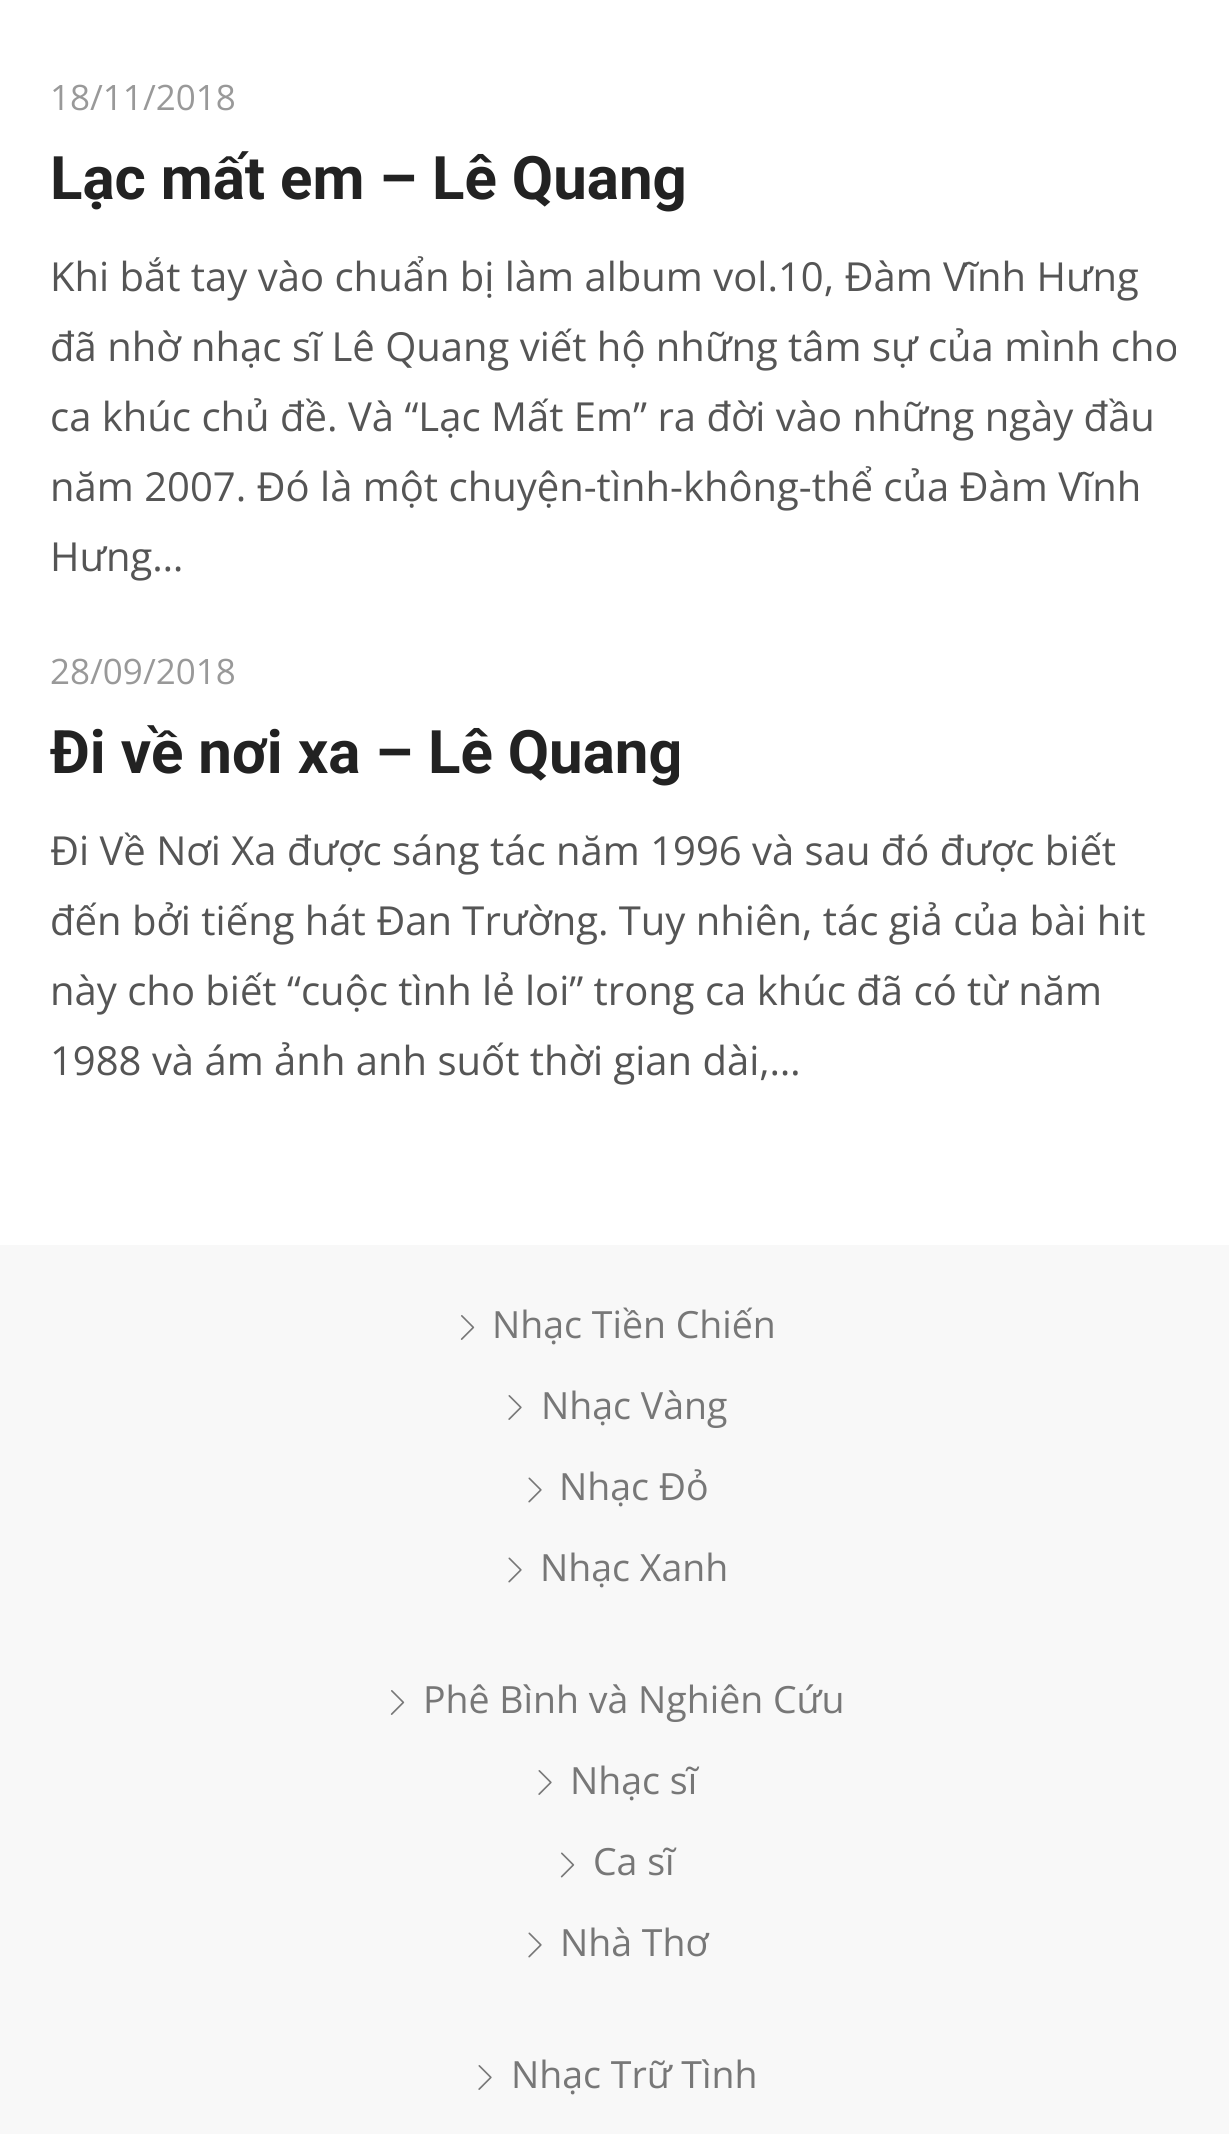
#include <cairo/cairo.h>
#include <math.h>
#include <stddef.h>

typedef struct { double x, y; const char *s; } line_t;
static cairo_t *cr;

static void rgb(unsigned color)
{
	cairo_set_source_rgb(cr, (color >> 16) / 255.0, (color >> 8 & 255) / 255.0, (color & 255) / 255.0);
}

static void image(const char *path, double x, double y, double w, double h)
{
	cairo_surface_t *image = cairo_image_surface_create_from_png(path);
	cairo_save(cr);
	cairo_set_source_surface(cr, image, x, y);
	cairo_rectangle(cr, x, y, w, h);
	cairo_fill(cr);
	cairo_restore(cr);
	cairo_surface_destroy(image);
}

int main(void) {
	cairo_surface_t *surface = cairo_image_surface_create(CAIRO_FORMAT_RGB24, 1229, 2134);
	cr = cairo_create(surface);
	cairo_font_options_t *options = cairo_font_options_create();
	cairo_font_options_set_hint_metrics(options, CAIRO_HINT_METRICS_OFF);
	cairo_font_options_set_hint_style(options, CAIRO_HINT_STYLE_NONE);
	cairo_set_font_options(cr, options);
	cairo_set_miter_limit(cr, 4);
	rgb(0xffffff);
	cairo_paint(cr);
	rgb(0xf8f8f8);
	cairo_rectangle(cr, 0, 1245, 1229, 889);
	cairo_fill(cr);
	image("img/1.png", 460, 1315, 15, 25);
	image("img/2.png", 508, 1395, 14, 25);
	image("img/3.png", 528, 1477, 14, 26);
	image("img/3.png", 508, 1557, 14, 26);
	image("img/1.png", 390, 1690, 15, 25);
	image("img/2.png", 538, 1770, 14, 25);
	image("img/4.png", 560, 1852, 15, 26);
	image("img/3.png", 528, 1932, 14, 26);
	image("img/2.png", 478, 2065, 14, 25);
	cairo_select_font_face(cr, "Open Sans", CAIRO_FONT_SLANT_NORMAL, CAIRO_FONT_WEIGHT_NORMAL);
	cairo_set_font_size(cr, 35);
	rgb(0x999999);
	cairo_move_to(cr, 50, 110);
	cairo_show_text(cr, "18/11/2018");
	cairo_select_font_face(cr, "Roboto", CAIRO_FONT_SLANT_NORMAL, CAIRO_FONT_WEIGHT_BOLD);
	cairo_set_font_size(cr, 60);
	rgb(0x222222);
	cairo_move_to(cr, 50, 199);
	cairo_show_text(cr, "Lạc mất em – Lê Quang");
	cairo_select_font_face(cr, "Open Sans", CAIRO_FONT_SLANT_NORMAL, CAIRO_FONT_WEIGHT_NORMAL);
	cairo_set_font_size(cr, 40);
	rgb(0x555555);
	{
		static const line_t items[] = {
			{50, 291, "Khi bắt tay vào chuẩn bị làm album vol.10, Đàm Vĩnh Hưng"},
			{50, 361, "đã nhờ nhạc sĩ Lê Quang viết hộ những tâm sự của mình cho"},
			{50, 431, "ca khúc chủ đề. Và “Lạc Mất Em” ra đời vào những ngày đầu"},
			{50, 501, "năm 2007. Đó là một chuyện-tình-không-thể của Đàm Vĩnh"},
			{50, 571, "Hưng…"},
		};
		for (size_t i = 0; i < sizeof items / sizeof *items; i++) {
			cairo_move_to(cr, items[i].x, items[i].y);
			cairo_show_text(cr, items[i].s);
		}
	}
	cairo_set_font_size(cr, 35);
	rgb(0x999999);
	cairo_move_to(cr, 50, 684);
	cairo_show_text(cr, "28/09/2018");
	cairo_select_font_face(cr, "Roboto", CAIRO_FONT_SLANT_NORMAL, CAIRO_FONT_WEIGHT_BOLD);
	cairo_set_font_size(cr, 60);
	rgb(0x222222);
	cairo_move_to(cr, 50, 773);
	cairo_show_text(cr, "Đi về nơi xa – Lê Quang");
	cairo_select_font_face(cr, "Open Sans", CAIRO_FONT_SLANT_NORMAL, CAIRO_FONT_WEIGHT_NORMAL);
	cairo_set_font_size(cr, 40);
	rgb(0x555555);
	{
		static const line_t items[] = {
			{50, 865, "Đi Về Nơi Xa được sáng tác năm 1996 và sau đó được biết"},
			{50, 935, "đến bởi tiếng hát Đan Trường. Tuy nhiên, tác giả của bài hit"},
			{50, 1005, "này cho biết “cuộc tình lẻ loi” trong ca khúc đã có từ năm"},
			{50, 1075, "1988 và ám ảnh anh suốt thời gian dài,…"},
		};
		for (size_t i = 0; i < sizeof items / sizeof *items; i++) {
			cairo_move_to(cr, items[i].x, items[i].y);
			cairo_show_text(cr, items[i].s);
		}
	}
	cairo_set_font_size(cr, 37.5);
	rgb(0x777777);
	{
		static const line_t items[] = {
			{492, 1338, "Nhạc Tiền Chiến"},
			{541, 1419, "Nhạc Vàng"},
			{559, 1500, "Nhạc Đỏ"},
			{540, 1581, "Nhạc Xanh"},
			{423, 1713, "Phê Bình và Nghiên Cứu"},
			{570, 1794, "Nhạc sĩ"},
			{593, 1875, "Ca sĩ"},
			{560, 1956, "Nhà Thơ"},
			{511, 2088, "Nhạc Trữ Tình"},
		};
		for (size_t i = 0; i < sizeof items / sizeof *items; i++) {
			cairo_move_to(cr, items[i].x, items[i].y);
			cairo_show_text(cr, items[i].s);
		}
	}
	cairo_surface_write_to_png(surface, "page.png");
	cairo_font_options_destroy(options);
	cairo_destroy(cr);
	cairo_surface_destroy(surface);
	return 0;
}
